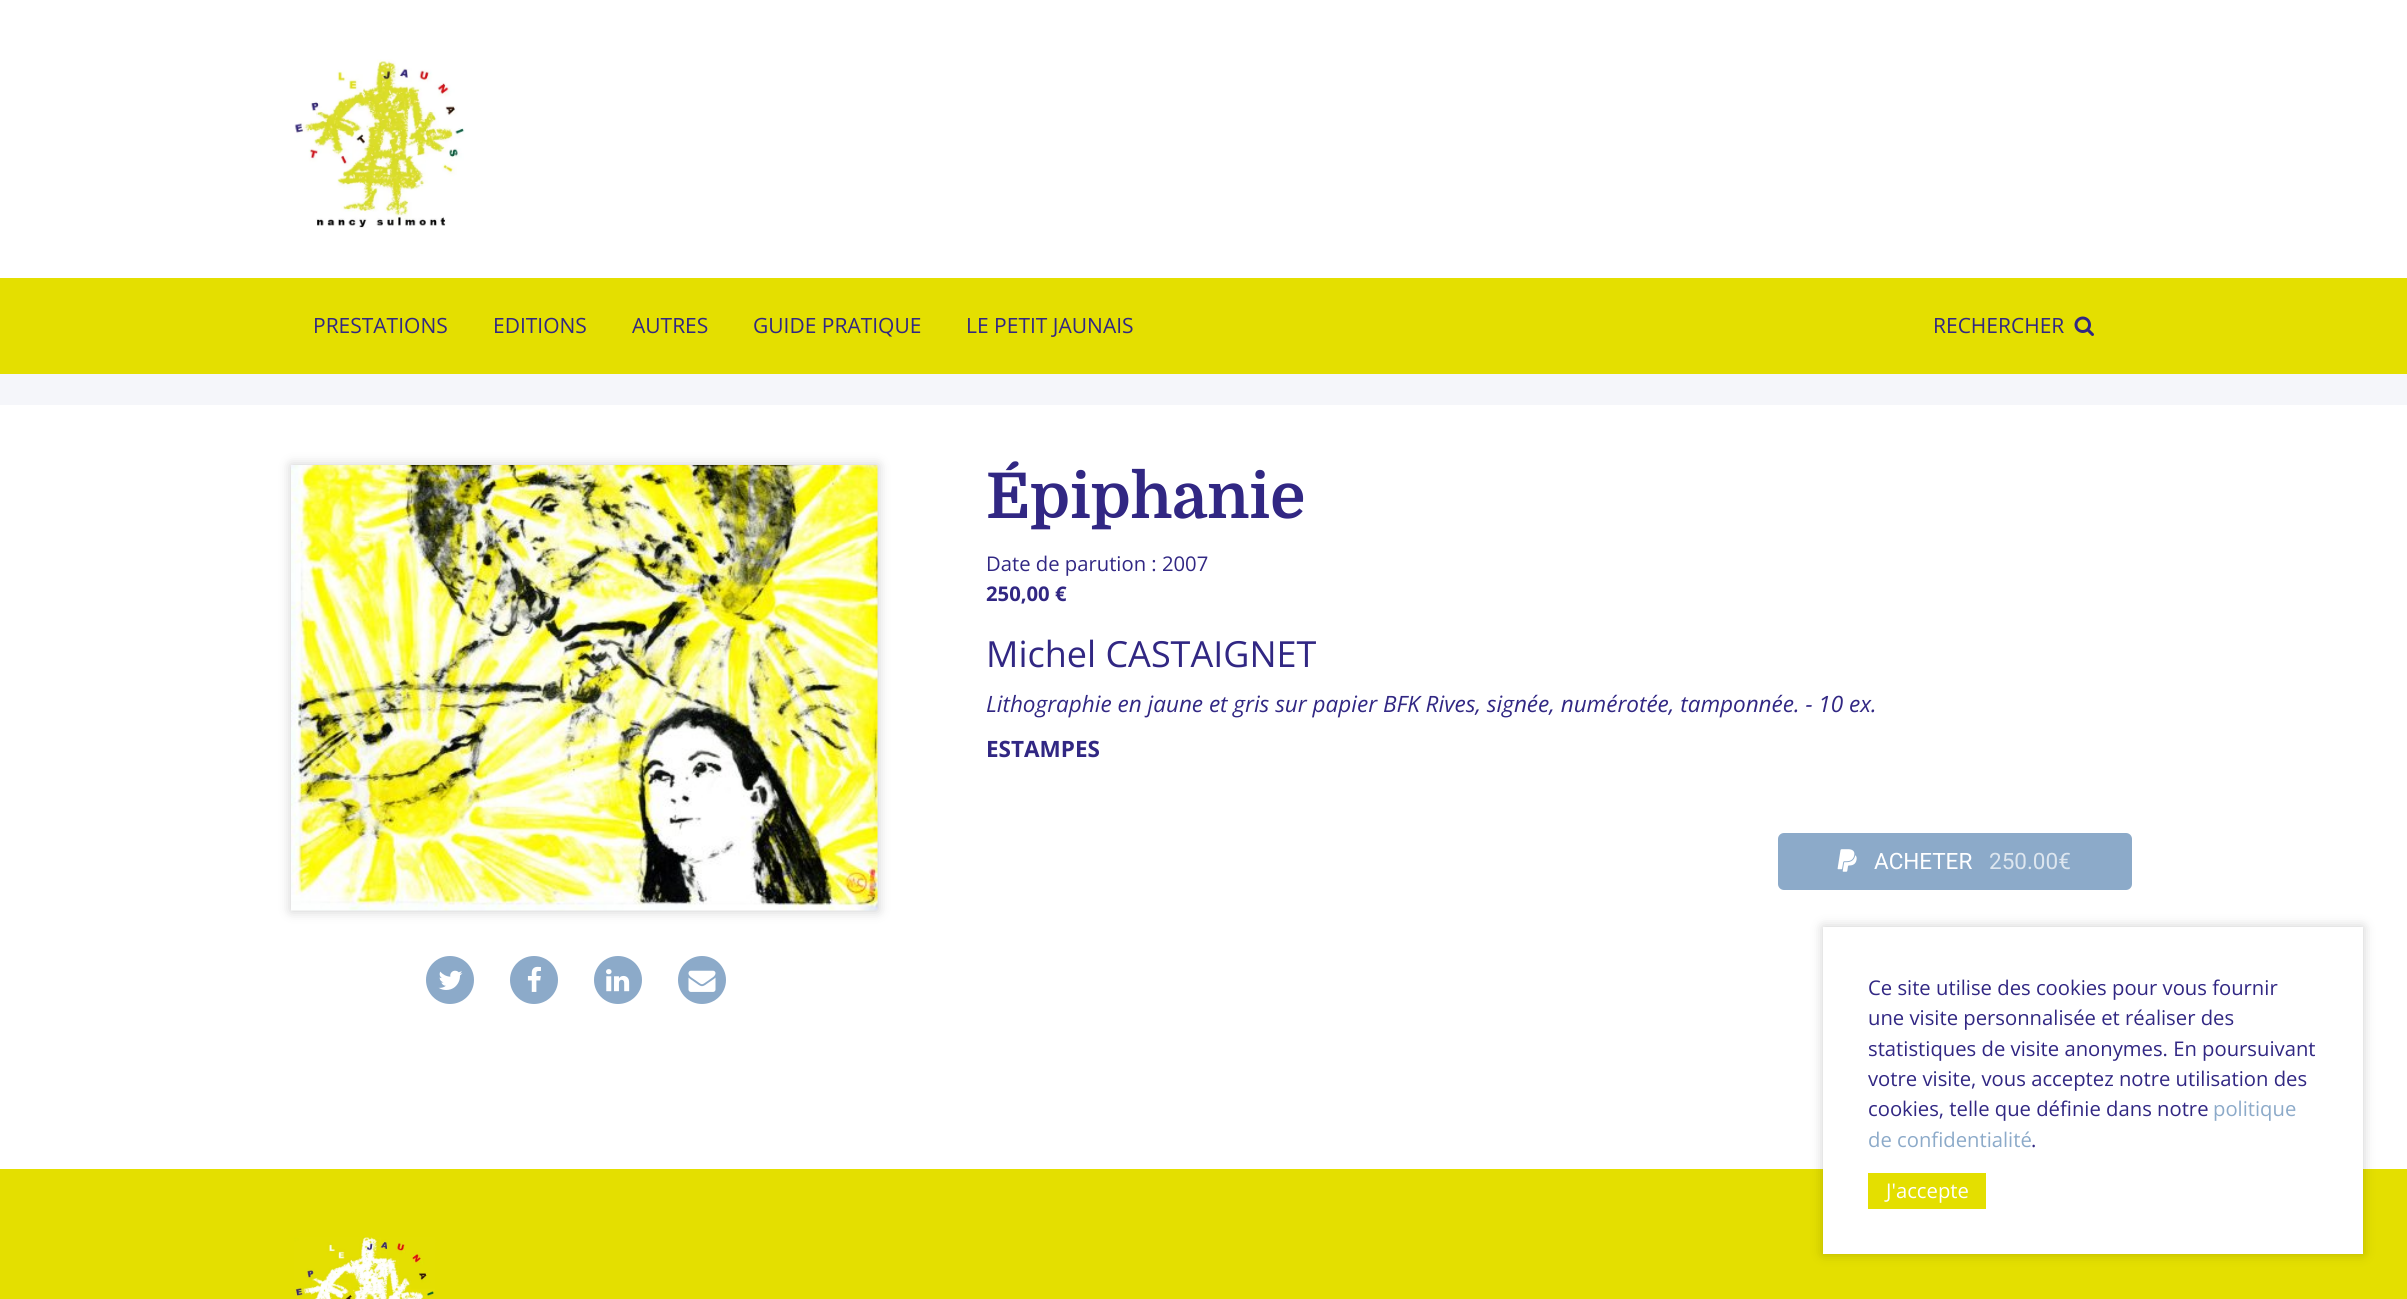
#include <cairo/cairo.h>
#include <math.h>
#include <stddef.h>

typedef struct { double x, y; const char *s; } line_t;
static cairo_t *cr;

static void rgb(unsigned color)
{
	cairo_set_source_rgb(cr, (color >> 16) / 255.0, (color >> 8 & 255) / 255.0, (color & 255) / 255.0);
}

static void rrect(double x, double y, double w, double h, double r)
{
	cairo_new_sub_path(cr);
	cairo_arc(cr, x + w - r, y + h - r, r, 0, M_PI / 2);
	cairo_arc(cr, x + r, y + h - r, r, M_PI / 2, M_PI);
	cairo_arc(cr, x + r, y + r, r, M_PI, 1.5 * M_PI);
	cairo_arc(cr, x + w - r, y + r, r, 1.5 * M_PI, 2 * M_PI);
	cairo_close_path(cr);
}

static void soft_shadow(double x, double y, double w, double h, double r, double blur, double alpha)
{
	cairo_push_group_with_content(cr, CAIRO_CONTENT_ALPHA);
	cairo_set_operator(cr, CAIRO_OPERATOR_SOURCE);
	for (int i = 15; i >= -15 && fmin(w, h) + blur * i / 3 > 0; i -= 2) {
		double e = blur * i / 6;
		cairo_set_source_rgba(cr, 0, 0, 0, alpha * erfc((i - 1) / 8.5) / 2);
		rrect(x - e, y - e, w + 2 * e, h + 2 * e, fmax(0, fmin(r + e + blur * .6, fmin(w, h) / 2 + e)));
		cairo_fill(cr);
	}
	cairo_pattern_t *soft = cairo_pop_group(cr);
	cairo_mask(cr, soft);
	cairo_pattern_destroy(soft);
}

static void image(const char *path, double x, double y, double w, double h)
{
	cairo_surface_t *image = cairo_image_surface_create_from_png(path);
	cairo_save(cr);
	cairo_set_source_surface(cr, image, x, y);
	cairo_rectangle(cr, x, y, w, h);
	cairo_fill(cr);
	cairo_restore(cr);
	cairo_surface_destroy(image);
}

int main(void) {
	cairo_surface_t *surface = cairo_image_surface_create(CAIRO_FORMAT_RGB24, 2407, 1299);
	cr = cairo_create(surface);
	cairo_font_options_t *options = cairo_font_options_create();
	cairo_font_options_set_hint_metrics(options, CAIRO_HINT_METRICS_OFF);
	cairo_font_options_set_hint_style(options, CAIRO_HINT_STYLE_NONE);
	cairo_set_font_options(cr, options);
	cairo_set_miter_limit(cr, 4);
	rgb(0xffffff);
	cairo_paint(cr);
	image("img/1.png", 294, 59, 171, 169);
	rgb(0xe4df00);
	cairo_rectangle(cr, 0, 278, 2407, 96);
	cairo_fill(cr);
	image("img/2.png", 2074, 316, 20, 20);
	rgb(0xf5f6fa);
	cairo_rectangle(cr, 0, 374, 2407, 31);
	cairo_fill(cr);
	rgb(0x000000);
	soft_shadow(291, 465, 587, 446, 0, 6, 0.2);
	image("img/3.png", 291, 465, 587, 446);
	rgb(0x8caac9);
	cairo_arc(cr, 450, 980, 24, 0, 2 * M_PI);
	cairo_fill(cr);
	image("img/4.png", 438, 970, 25, 20);
	cairo_arc(cr, 534, 980, 24, 0, 2 * M_PI);
	cairo_fill(cr);
	image("img/5.png", 527, 966, 14, 26);
	cairo_arc(cr, 618, 980, 24, 0, 2 * M_PI);
	cairo_fill(cr);
	image("img/6.png", 606, 969, 24, 23);
	cairo_arc(cr, 702, 980, 24, 0, 2 * M_PI);
	cairo_fill(cr);
	image("img/7.png", 688, 970, 28, 22);
	rrect(1778, 833, 354, 57, 6);
	cairo_fill(cr);
	image("img/8.png", 1837, 849, 20, 23);
	rgb(0xe4df00);
	cairo_rectangle(cr, 0, 1169, 2407, 130);
	cairo_fill(cr);
	rgb(0x000000);
	soft_shadow(1823, 927, 540, 327, 0, 6, 0.2);
	rgb(0xffffff);
	cairo_rectangle(cr, 1823, 927, 540, 327);
	cairo_fill(cr);
	rgb(0xe4df00);
	cairo_rectangle(cr, 1868, 1173, 118, 36);
	cairo_fill(cr);
	image("img/9.png", 294, 1237, 141, 62);
	cairo_select_font_face(cr, "Open Sans", CAIRO_FONT_SLANT_NORMAL, CAIRO_FONT_WEIGHT_NORMAL);
	cairo_set_font_size(cr, 21);
	rgb(0x312783);
	{
		static const line_t items[] = {
			{313, 333, "PRESTATIONS"},
			{493, 333, "EDITIONS"},
			{632, 333, "AUTRES"},
			{753, 333, "GUIDE PRATIQUE"},
			{966, 333, "LE PETIT JAUNAIS"},
			{1933, 333, "RECHERCHER"},
		};
		for (size_t i = 0; i < sizeof items / sizeof *items; i++) {
			cairo_move_to(cr, items[i].x, items[i].y);
			cairo_show_text(cr, items[i].s);
		}
	}
	cairo_select_font_face(cr, "Domine", CAIRO_FONT_SLANT_NORMAL, CAIRO_FONT_WEIGHT_BOLD);
	cairo_set_font_size(cr, 63);
	cairo_move_to(cr, 986, 518);
	cairo_show_text(cr, "Épiphanie");
	cairo_select_font_face(cr, "Open Sans", CAIRO_FONT_SLANT_NORMAL, CAIRO_FONT_WEIGHT_NORMAL);
	cairo_set_font_size(cr, 20.25);
	cairo_move_to(cr, 986, 571);
	cairo_show_text(cr, "Date de parution : 2007");
	cairo_select_font_face(cr, "Open Sans", CAIRO_FONT_SLANT_NORMAL, CAIRO_FONT_WEIGHT_BOLD);
	cairo_move_to(cr, 986, 601);
	cairo_show_text(cr, "250,00 €");
	cairo_select_font_face(cr, "Open Sans", CAIRO_FONT_SLANT_NORMAL, CAIRO_FONT_WEIGHT_NORMAL);
	cairo_set_font_size(cr, 36);
	cairo_move_to(cr, 986, 667);
	cairo_show_text(cr, "Michel CASTAIGNET");
	cairo_select_font_face(cr, "Open Sans", CAIRO_FONT_SLANT_ITALIC, CAIRO_FONT_WEIGHT_NORMAL);
	cairo_set_font_size(cr, 22.5);
	cairo_move_to(cr, 986, 712);
	cairo_show_text(cr, "Lithographie en jaune et gris sur papier BFK Rives, signée, numérotée, tamponnée. - 10 ex.");
	cairo_select_font_face(cr, "Open Sans", CAIRO_FONT_SLANT_NORMAL, CAIRO_FONT_WEIGHT_BOLD);
	cairo_move_to(cr, 986, 757);
	cairo_show_text(cr, "ESTAMPES");
	cairo_select_font_face(cr, "Roboto", CAIRO_FONT_SLANT_NORMAL, CAIRO_FONT_WEIGHT_NORMAL);
	rgb(0xffffff);
	cairo_move_to(cr, 1874, 869);
	cairo_show_text(cr, "ACHETER");
	rgb(0xdde6ef);
	cairo_move_to(cr, 1989, 869);
	cairo_show_text(cr, "250.00€");
	cairo_select_font_face(cr, "Open Sans", CAIRO_FONT_SLANT_NORMAL, CAIRO_FONT_WEIGHT_NORMAL);
	cairo_set_font_size(cr, 20.25);
	rgb(0x312783);
	{
		static const line_t items[] = {
			{1868, 995, "Ce site utilise des cookies pour vous fournir"},
			{1868, 1025, "une visite personnalisée et réaliser des"},
			{1868, 1056, "statistiques de visite anonymes. En poursuivant"},
			{1868, 1086, "votre visite, vous acceptez notre utilisation des"},
			{1868, 1116, "cookies, telle que définie dans notre"},
		};
		for (size_t i = 0; i < sizeof items / sizeof *items; i++) {
			cairo_move_to(cr, items[i].x, items[i].y);
			cairo_show_text(cr, items[i].s);
		}
	}
	rgb(0x8caac9);
	cairo_move_to(cr, 2213, 1116);
	cairo_show_text(cr, "politique");
	cairo_move_to(cr, 1868, 1147);
	cairo_show_text(cr, "de confidentialité");
	rgb(0x312783);
	cairo_move_to(cr, 2031, 1147);
	cairo_show_text(cr, ".");
	rgb(0xffffff);
	cairo_move_to(cr, 1886, 1198);
	cairo_show_text(cr, "J'accepte");
	cairo_surface_write_to_png(surface, "page.png");
	cairo_font_options_destroy(options);
	cairo_destroy(cr);
	cairo_surface_destroy(surface);
	return 0;
}
